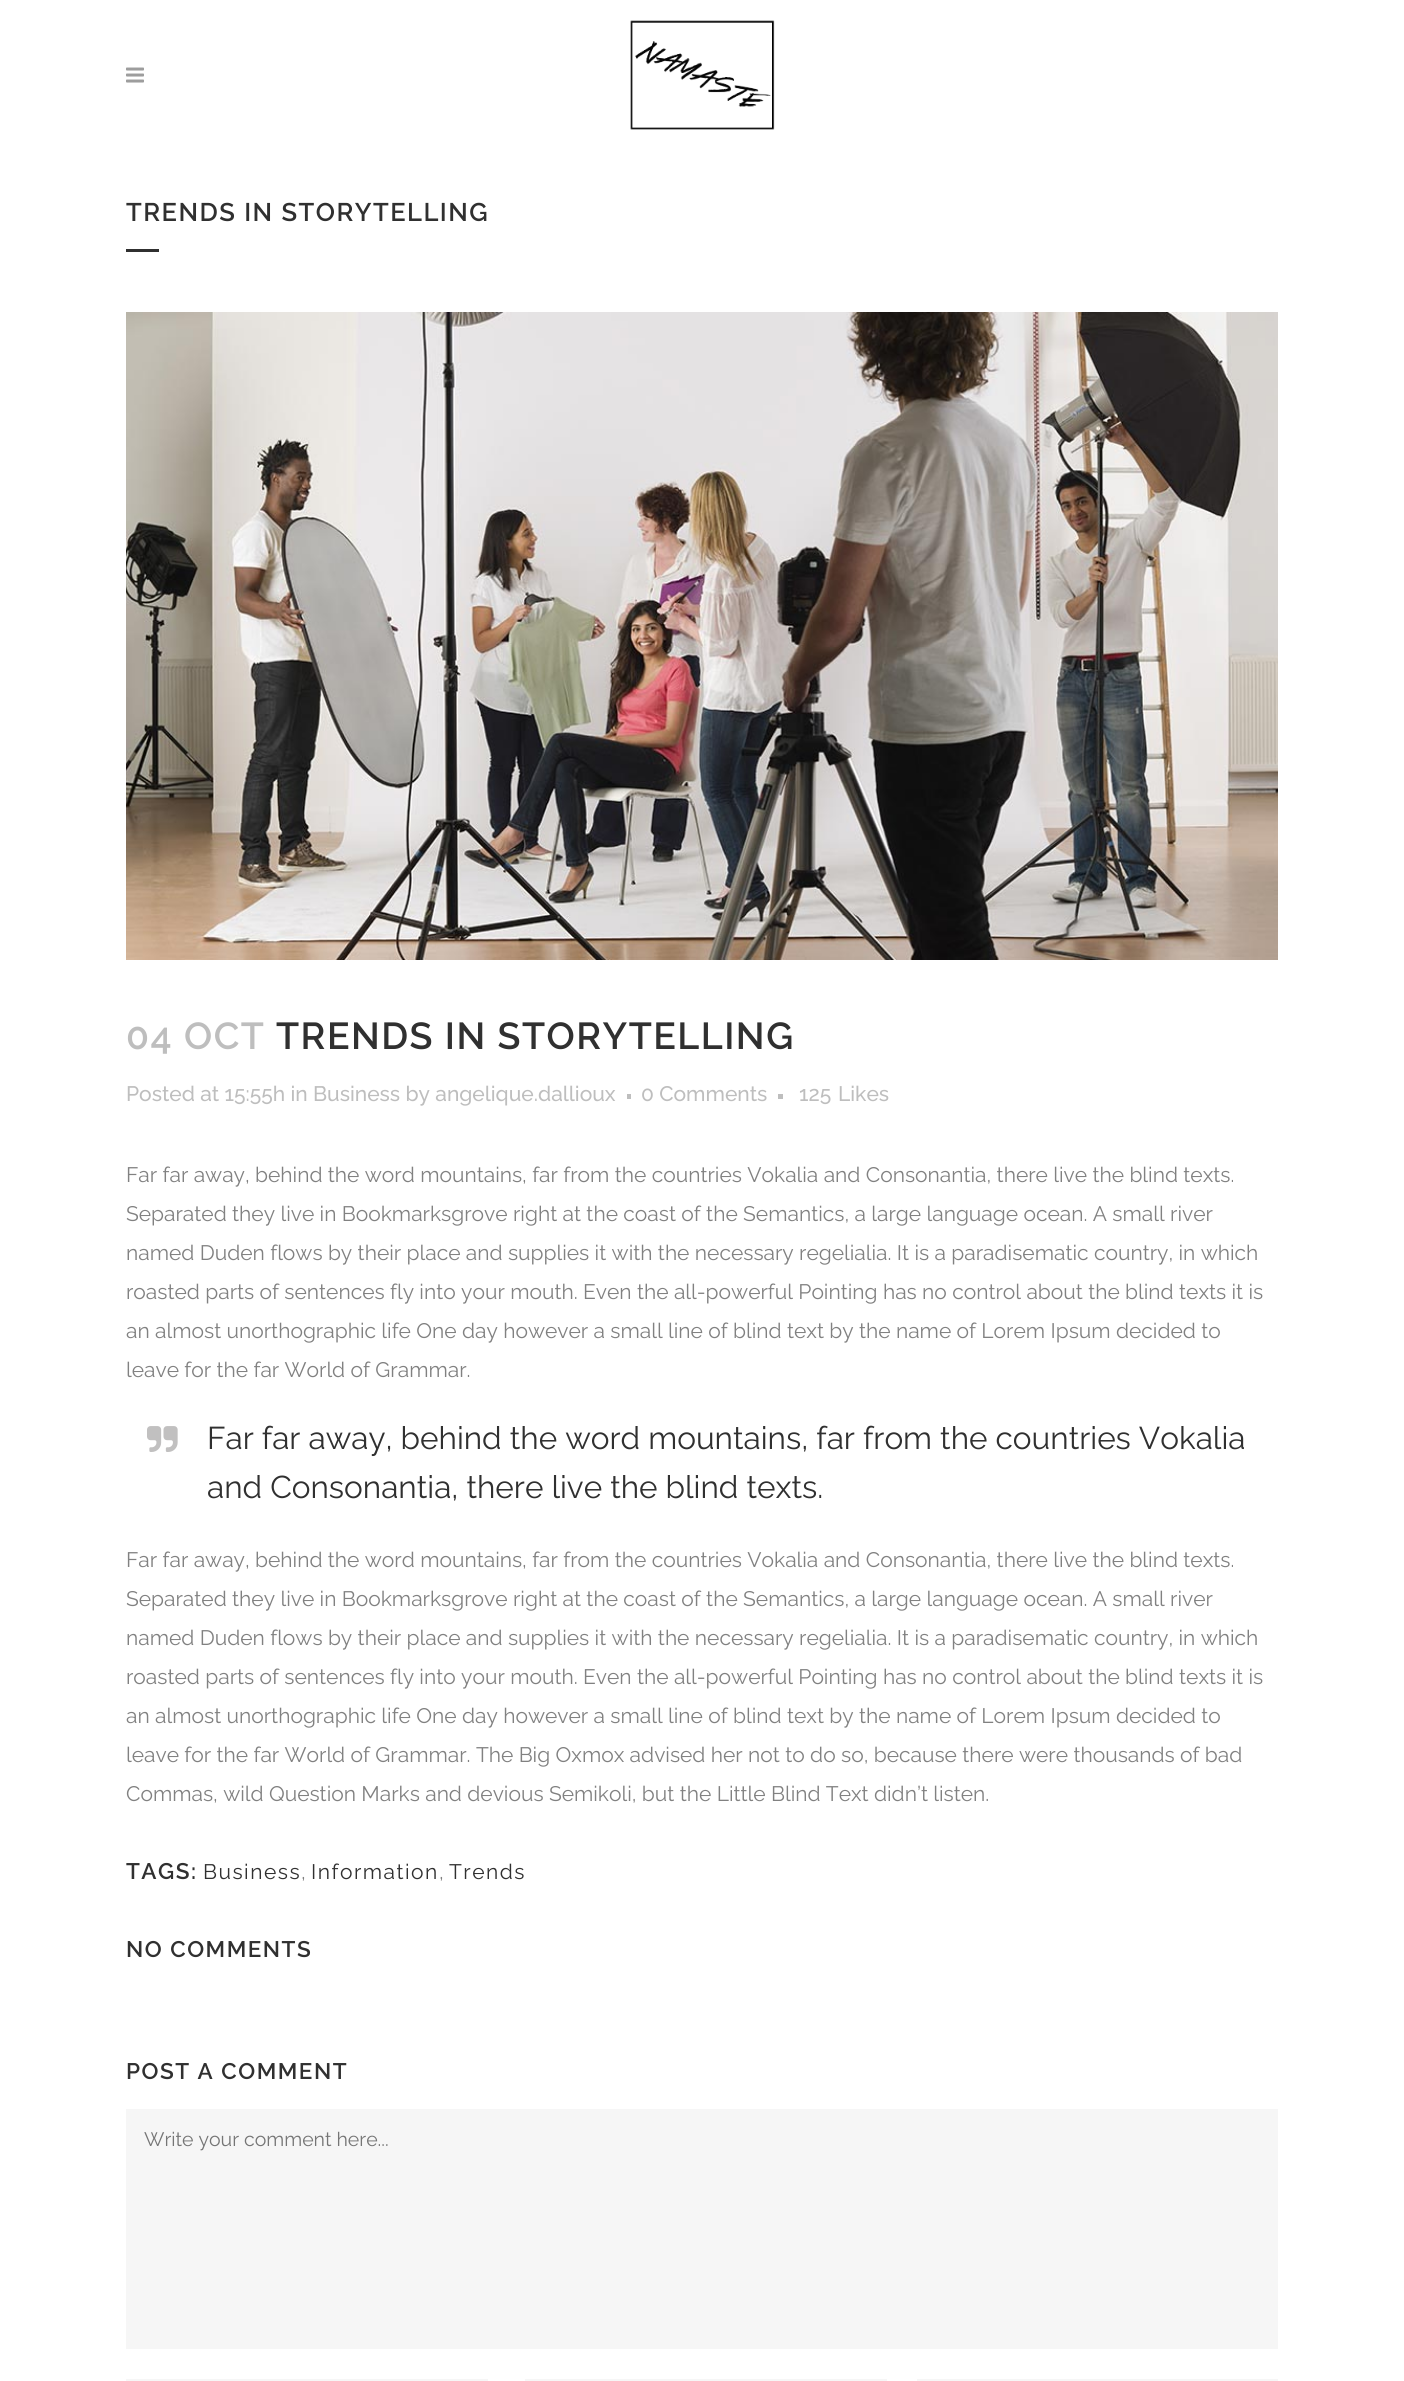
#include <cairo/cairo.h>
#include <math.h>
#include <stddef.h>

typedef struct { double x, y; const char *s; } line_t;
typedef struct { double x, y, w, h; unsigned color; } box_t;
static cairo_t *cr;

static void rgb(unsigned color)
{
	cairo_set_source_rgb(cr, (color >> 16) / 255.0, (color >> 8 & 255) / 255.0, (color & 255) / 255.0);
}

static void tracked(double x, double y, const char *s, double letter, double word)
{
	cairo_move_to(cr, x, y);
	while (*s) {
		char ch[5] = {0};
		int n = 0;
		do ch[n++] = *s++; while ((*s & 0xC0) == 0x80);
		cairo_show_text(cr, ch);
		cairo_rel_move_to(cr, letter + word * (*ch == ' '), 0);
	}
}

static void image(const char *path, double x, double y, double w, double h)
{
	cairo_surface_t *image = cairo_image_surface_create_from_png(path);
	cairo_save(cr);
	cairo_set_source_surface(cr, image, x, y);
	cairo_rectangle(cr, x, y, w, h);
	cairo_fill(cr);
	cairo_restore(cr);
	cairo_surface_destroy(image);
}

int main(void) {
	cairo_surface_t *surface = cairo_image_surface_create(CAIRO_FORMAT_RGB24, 1404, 2381);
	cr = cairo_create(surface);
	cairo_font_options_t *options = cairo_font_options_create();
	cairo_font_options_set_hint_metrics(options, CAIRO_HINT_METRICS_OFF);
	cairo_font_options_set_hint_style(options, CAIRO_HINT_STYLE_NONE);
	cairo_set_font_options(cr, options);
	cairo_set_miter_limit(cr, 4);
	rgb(0xffffff);
	cairo_paint(cr);
	image("img/1.png", 126, 67, 18, 16);
	image("img/2.png", 630, 20, 145, 110);
	rgb(0x303030);
	cairo_rectangle(cr, 126, 249, 33, 3);
	cairo_fill(cr);
	image("img/3.png", 126, 312, 1152, 648);
	rgb(0xbebebe);
	cairo_rectangle(cr, 627, 1094, 4, 5);
	cairo_fill(cr);
	cairo_rectangle(cr, 778, 1094, 5, 5);
	cairo_fill(cr);
	image("img/4.png", 147, 1426, 31, 26);
	{
		static const box_t items[] = {
			{126, 2109, 1152, 240, 0xf6f6f6},
			{126, 2379, 362, 2, 0xf6f6f6},
			{525, 2379, 362, 2, 0xf6f6f6},
			{917, 2379, 361, 2, 0xf6f6f6},
		};
		for (size_t i = 0; i < sizeof items / sizeof *items; i++) {
			rgb(items[i].color);
			cairo_rectangle(cr, items[i].x, items[i].y, items[i].w, items[i].h);
			cairo_fill(cr);
		}
	}
	cairo_select_font_face(cr, "Raleway SemiBold", CAIRO_FONT_SLANT_NORMAL, CAIRO_FONT_WEIGHT_NORMAL);
	cairo_set_font_size(cr, 25.5);
	rgb(0x303030);
	tracked(126, 221, "TRENDS IN STORYTELLING", 1.5, 0);
	cairo_set_font_size(cr, 37.5);
	rgb(0xbebebe);
	tracked(126, 1049, "04 OCT", 1.5, 0);
	rgb(0x303030);
	tracked(276, 1049, "TRENDS IN STORYTELLING", 1.5, 0);
	cairo_select_font_face(cr, "Raleway Medium", CAIRO_FONT_SLANT_NORMAL, CAIRO_FONT_WEIGHT_NORMAL);
	cairo_set_font_size(cr, 21);
	rgb(0xbebebe);
	{
		static const line_t items[] = {
			{126, 1101, "Posted at 15:55h in Business by angelique.dallioux"},
			{641, 1101, "0 Comments"},
			{799, 1101, "125"},
			{838, 1101, "Likes"},
		};
		for (size_t i = 0; i < sizeof items / sizeof *items; i++) {
			cairo_move_to(cr, items[i].x, items[i].y);
			cairo_show_text(cr, items[i].s);
		}
	}
	cairo_select_font_face(cr, "Raleway", CAIRO_FONT_SLANT_NORMAL, CAIRO_FONT_WEIGHT_NORMAL);
	rgb(0x818181);
	{
		static const line_t items[] = {
			{126, 1182, "Far far away, behind the word mountains, far from the countries Vokalia and Consonantia, there live the blind texts."},
			{126, 1221, "Separated they live in Bookmarksgrove right at the coast of the Semantics, a large language ocean. A small river"},
			{126, 1260, "named Duden flows by their place and supplies it with the necessary regelialia. It is a paradisematic country, in which"},
			{126, 1299, "roasted parts of sentences fly into your mouth. Even the all-powerful Pointing has no control about the blind texts it is"},
			{126, 1338, "an almost unorthographic life One day however a small line of blind text by the name of Lorem Ipsum decided to"},
			{126, 1377, "leave for the far World of Grammar."},
		};
		for (size_t i = 0; i < sizeof items / sizeof *items; i++) {
			cairo_move_to(cr, items[i].x, items[i].y);
			cairo_show_text(cr, items[i].s);
		}
	}
	cairo_set_font_size(cr, 31.5);
	rgb(0x303030);
	cairo_move_to(cr, 207, 1449);
	cairo_show_text(cr, "Far far away, behind the word mountains, far from the countries Vokalia");
	cairo_move_to(cr, 207, 1498);
	cairo_show_text(cr, "and Consonantia, there live the blind texts.");
	cairo_set_font_size(cr, 21);
	rgb(0x818181);
	{
		static const line_t items[] = {
			{126, 1567, "Far far away, behind the word mountains, far from the countries Vokalia and Consonantia, there live the blind texts."},
			{126, 1606, "Separated they live in Bookmarksgrove right at the coast of the Semantics, a large language ocean. A small river"},
			{126, 1645, "named Duden flows by their place and supplies it with the necessary regelialia. It is a paradisematic country, in which"},
			{126, 1684, "roasted parts of sentences fly into your mouth. Even the all-powerful Pointing has no control about the blind texts it is"},
			{126, 1723, "an almost unorthographic life One day however a small line of blind text by the name of Lorem Ipsum decided to"},
			{126, 1762, "leave for the far World of Grammar. The Big Oxmox advised her not to do so, because there were thousands of bad"},
			{126, 1801, "Commas, wild Question Marks and devious Semikoli, but the Little Blind Text didn’t listen."},
		};
		for (size_t i = 0; i < sizeof items / sizeof *items; i++) {
			cairo_move_to(cr, items[i].x, items[i].y);
			cairo_show_text(cr, items[i].s);
		}
	}
	cairo_select_font_face(cr, "Raleway SemiBold", CAIRO_FONT_SLANT_NORMAL, CAIRO_FONT_WEIGHT_NORMAL);
	cairo_set_font_size(cr, 22.5);
	rgb(0x303030);
	tracked(126, 1879, "TAGS:", 1.5, 0);
	cairo_select_font_face(cr, "Raleway", CAIRO_FONT_SLANT_NORMAL, CAIRO_FONT_WEIGHT_NORMAL);
	cairo_set_font_size(cr, 21);
	tracked(203, 1879, "Business", 1.5, 0);
	rgb(0x818181);
	cairo_move_to(cr, 301, 1879);
	cairo_show_text(cr, ",");
	rgb(0x303030);
	tracked(311, 1879, "Information", 1.5, 0);
	rgb(0x818181);
	cairo_move_to(cr, 439, 1879);
	cairo_show_text(cr, ",");
	rgb(0x303030);
	tracked(449, 1879, "Trends", 1.5, 0);
	cairo_select_font_face(cr, "Raleway SemiBold", CAIRO_FONT_SLANT_NORMAL, CAIRO_FONT_WEIGHT_NORMAL);
	cairo_set_font_size(cr, 22.5);
	tracked(126, 1957, "NO COMMENTS", 1.5, 0);
	tracked(126, 2079, "POST A COMMENT", 1.5, 0);
	cairo_select_font_face(cr, "Raleway", CAIRO_FONT_SLANT_NORMAL, CAIRO_FONT_WEIGHT_NORMAL);
	cairo_set_font_size(cr, 19.5);
	rgb(0x757575);
	cairo_move_to(cr, 144, 2146);
	cairo_show_text(cr, "Write your comment here...");
	cairo_surface_write_to_png(surface, "page.png");
	cairo_font_options_destroy(options);
	cairo_destroy(cr);
	cairo_surface_destroy(surface);
	return 0;
}
